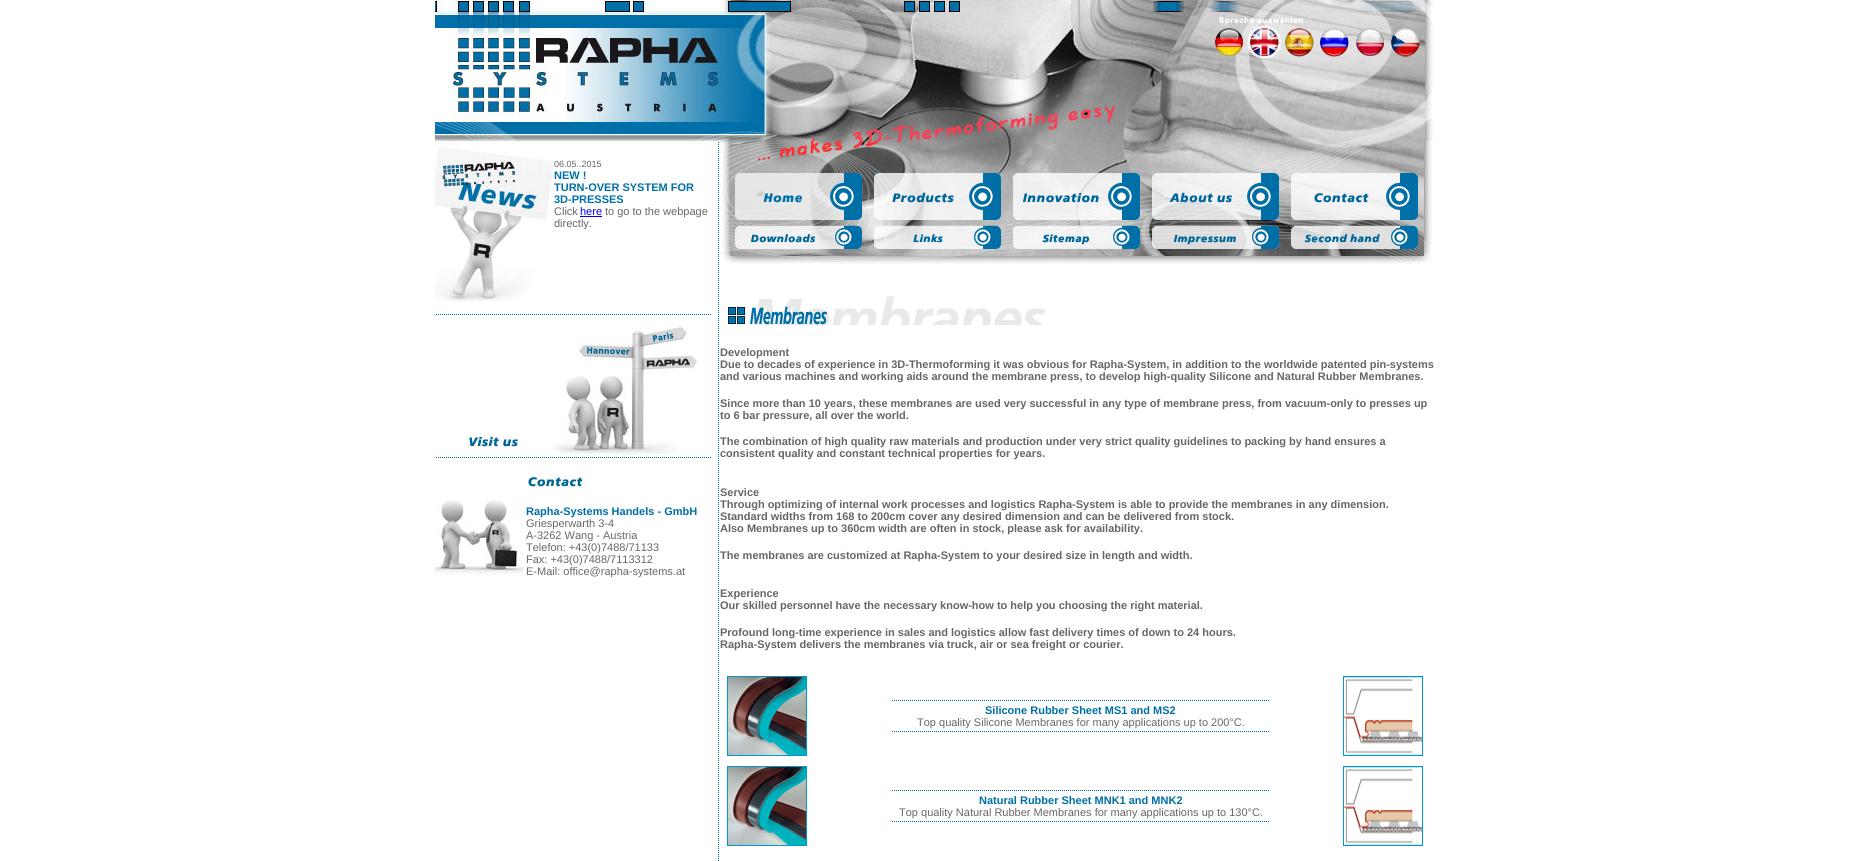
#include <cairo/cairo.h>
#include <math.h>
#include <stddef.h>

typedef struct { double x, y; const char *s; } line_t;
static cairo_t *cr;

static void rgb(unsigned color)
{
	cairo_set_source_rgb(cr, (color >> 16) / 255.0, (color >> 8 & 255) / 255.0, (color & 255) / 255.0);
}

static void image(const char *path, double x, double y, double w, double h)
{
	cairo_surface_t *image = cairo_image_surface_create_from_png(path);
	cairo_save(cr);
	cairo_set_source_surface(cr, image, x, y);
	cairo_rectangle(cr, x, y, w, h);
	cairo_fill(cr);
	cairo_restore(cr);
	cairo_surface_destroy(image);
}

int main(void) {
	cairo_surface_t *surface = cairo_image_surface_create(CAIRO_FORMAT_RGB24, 1869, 861);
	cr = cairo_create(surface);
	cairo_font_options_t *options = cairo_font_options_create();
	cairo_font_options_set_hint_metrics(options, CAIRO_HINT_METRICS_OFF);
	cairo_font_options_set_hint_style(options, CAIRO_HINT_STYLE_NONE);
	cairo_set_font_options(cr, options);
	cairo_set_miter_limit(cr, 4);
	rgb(0xffffff);
	cairo_paint(cr);
	image("img/1.png", 435, 0, 998, 24);
	image("img/2.png", 435, 24, 276, 36);
	image("img/3.png", 711, 24, 10, 36);
	image("img/4.png", 721, 24, 15, 36);
	image("img/5.png", 736, 24, 127, 36);
	image("img/6.png", 863, 24, 12, 36);
	image("img/7.png", 875, 24, 127, 36);
	image("img/8.png", 1002, 24, 12, 36);
	image("img/9.png", 1014, 24, 127, 36);
	image("img/10.png", 1141, 24, 12, 36);
	image("img/11.png", 1153, 24, 58, 36);
	image("img/12.png", 1211, 24, 36, 36);
	image("img/13.png", 1247, 24, 35, 36);
	image("img/14.png", 1282, 24, 35, 36);
	image("img/15.png", 1317, 24, 35, 36);
	image("img/16.png", 1352, 24, 36, 36);
	image("img/17.png", 1388, 24, 35, 36);
	image("img/18.png", 1423, 24, 10, 36);
	image("img/19.png", 435, 60, 998, 81);
	image("img/20.png", 435, 147, 119, 155);
	rgb(0x0000ee);
	cairo_rectangle(cr, 580, 216, 22, 1);
	cairo_fill(cr);
	image("img/21.png", 436, 314, 275, 1);
	image("img/22.png", 469, 437, 85, 12);
	image("img/23.png", 554, 326, 143, 128);
	image("img/21.png", 436, 457, 275, 1);
	image("img/24.png", 435, 500, 88, 75);
	image("img/25.png", 528, 477, 55, 10);
	image("img/26.png", 718, 142, 1, 719);
	image("img/27.png", 720, 141, 15, 32);
	image("img/28.png", 735, 141, 127, 32);
	image("img/29.png", 862, 141, 12, 32);
	image("img/30.png", 874, 141, 127, 32);
	image("img/31.png", 1001, 141, 12, 32);
	image("img/32.png", 1013, 141, 127, 32);
	image("img/33.png", 1140, 141, 12, 32);
	image("img/34.png", 1152, 141, 127, 32);
	image("img/35.png", 1279, 141, 12, 32);
	image("img/36.png", 1291, 141, 127, 32);
	image("img/37.png", 1418, 141, 14, 32);
	image("img/38.png", 721, 173, 14, 47);
	image("img/39.png", 735, 173, 127, 47);
	image("img/40.png", 862, 173, 12, 47);
	image("img/41.png", 874, 173, 127, 47);
	image("img/42.png", 1001, 173, 12, 47);
	image("img/43.png", 1013, 173, 127, 47);
	image("img/44.png", 1140, 173, 12, 47);
	image("img/45.png", 1152, 173, 127, 47);
	image("img/46.png", 1279, 173, 12, 47);
	image("img/47.png", 1291, 173, 127, 47);
	image("img/48.png", 1418, 173, 14, 47);
	image("img/49.png", 722, 220, 710, 6);
	image("img/50.png", 722, 226, 13, 23);
	image("img/51.png", 735, 226, 127, 23);
	image("img/52.png", 862, 226, 12, 23);
	image("img/53.png", 874, 226, 127, 23);
	image("img/54.png", 1001, 226, 12, 23);
	image("img/55.png", 1013, 226, 127, 23);
	image("img/56.png", 1140, 226, 12, 23);
	image("img/57.png", 1152, 226, 127, 23);
	image("img/58.png", 1279, 226, 12, 23);
	image("img/59.png", 1291, 226, 127, 23);
	image("img/60.png", 1418, 226, 14, 23);
	image("img/61.png", 723, 249, 709, 15);
	image("img/62.png", 728, 296, 317, 29);
	image("img/63.png", 727, 676, 80, 80);
	image("img/64.png", 892, 700, 377, 1);
	image("img/64.png", 892, 731, 377, 1);
	image("img/65.png", 1343, 676, 80, 80);
	image("img/63.png", 727, 766, 80, 80);
	image("img/64.png", 892, 790, 377, 1);
	image("img/64.png", 892, 821, 377, 1);
	image("img/65.png", 1343, 766, 80, 80);
	cairo_select_font_face(cr, "Liberation Sans", CAIRO_FONT_SLANT_NORMAL, CAIRO_FONT_WEIGHT_NORMAL);
	cairo_set_font_size(cr, 9);
	rgb(0x666666);
	cairo_move_to(cr, 554, 167);
	cairo_show_text(cr, "06.05..2015");
	cairo_select_font_face(cr, "Liberation Sans", CAIRO_FONT_SLANT_NORMAL, CAIRO_FONT_WEIGHT_BOLD);
	cairo_set_font_size(cr, 11);
	rgb(0x006fa8);
	{
		static const line_t items[] = {
			{554, 179, "NEW !"},
			{554, 191, "TURN-OVER SYSTEM FOR"},
			{554, 203, "3D-PRESSES"},
		};
		for (size_t i = 0; i < sizeof items / sizeof *items; i++) {
			cairo_move_to(cr, items[i].x, items[i].y);
			cairo_show_text(cr, items[i].s);
		}
	}
	cairo_select_font_face(cr, "Liberation Sans", CAIRO_FONT_SLANT_NORMAL, CAIRO_FONT_WEIGHT_NORMAL);
	rgb(0x666666);
	cairo_move_to(cr, 554, 215);
	cairo_show_text(cr, "Click");
	rgb(0x0000ee);
	cairo_move_to(cr, 580, 215);
	cairo_show_text(cr, "here");
	rgb(0x666666);
	cairo_move_to(cr, 605, 215);
	cairo_show_text(cr, "to go to the webpage");
	cairo_move_to(cr, 554, 227);
	cairo_show_text(cr, "directly.");
	cairo_select_font_face(cr, "Liberation Sans", CAIRO_FONT_SLANT_NORMAL, CAIRO_FONT_WEIGHT_BOLD);
	rgb(0x006fa8);
	cairo_move_to(cr, 526, 515);
	cairo_show_text(cr, "Rapha-Systems Handels - GmbH");
	cairo_select_font_face(cr, "Liberation Sans", CAIRO_FONT_SLANT_NORMAL, CAIRO_FONT_WEIGHT_NORMAL);
	rgb(0x666666);
	{
		static const line_t items[] = {
			{526, 527, "Griesperwarth 3-4"},
			{526, 539, "A-3262 Wang - Austria"},
			{526, 551, "Telefon: +43(0)7488/71133"},
			{526, 563, "Fax: +43(0)7488/7113312"},
			{526, 575, "E-Mail: office@rapha-systems.at"},
		};
		for (size_t i = 0; i < sizeof items / sizeof *items; i++) {
			cairo_move_to(cr, items[i].x, items[i].y);
			cairo_show_text(cr, items[i].s);
		}
	}
	cairo_select_font_face(cr, "Liberation Sans", CAIRO_FONT_SLANT_NORMAL, CAIRO_FONT_WEIGHT_BOLD);
	{
		static const line_t items[] = {
			{720, 356, "Development"},
			{720, 368, "Due to decades of experience in 3D-Thermoforming it was obvious for Rapha-System, in addition to the worldwide patented pin-systems"},
			{720, 380, "and various machines and working aids around the membrane press, to develop high-quality Silicone and Natural Rubber Membranes."},
			{720, 407, "Since more than 10 years, these membranes are used very successful in any type of membrane press, from vacuum-only to presses up"},
			{720, 419, "to 6 bar pressure, all over the world."},
			{720, 445, "The combination of high quality raw materials and production under very strict quality guidelines to packing by hand ensures a"},
			{720, 457, "consistent quality and constant technical properties for years."},
			{720, 496, "Service"},
			{720, 508, "Through optimizing of internal work processes and logistics Rapha-System is able to provide the membranes in any dimension."},
			{720, 520, "Standard widths from 168 to 200cm cover any desired dimension and can be delivered from stock."},
			{720, 532, "Also Membranes up to 360cm width are often in stock, please ask for availability."},
			{720, 559, "The membranes are customized at Rapha-System to your desired size in length and width."},
			{720, 597, "Experience"},
			{720, 609, "Our skilled personnel have the necessary know-how to help you choosing the right material."},
			{720, 636, "Profound long-time experience in sales and logistics allow fast delivery times of down to 24 hours."},
			{720, 648, "Rapha-System delivers the membranes via truck, air or sea freight or courier."},
		};
		for (size_t i = 0; i < sizeof items / sizeof *items; i++) {
			cairo_move_to(cr, items[i].x, items[i].y);
			cairo_show_text(cr, items[i].s);
		}
	}
	rgb(0x006fa8);
	cairo_move_to(cr, 985, 714);
	cairo_show_text(cr, "Silicone Rubber Sheet MS1 and MS2");
	cairo_select_font_face(cr, "Liberation Sans", CAIRO_FONT_SLANT_NORMAL, CAIRO_FONT_WEIGHT_NORMAL);
	rgb(0x666666);
	cairo_move_to(cr, 917, 726);
	cairo_show_text(cr, "Top quality Silicone Membranes for many applications up to 200°C.");
	cairo_select_font_face(cr, "Liberation Sans", CAIRO_FONT_SLANT_NORMAL, CAIRO_FONT_WEIGHT_BOLD);
	rgb(0x006fa8);
	cairo_move_to(cr, 979, 804);
	cairo_show_text(cr, "Natural Rubber Sheet MNK1 and MNK2");
	cairo_select_font_face(cr, "Liberation Sans", CAIRO_FONT_SLANT_NORMAL, CAIRO_FONT_WEIGHT_NORMAL);
	rgb(0x666666);
	cairo_move_to(cr, 899, 816);
	cairo_show_text(cr, "Top quality Natural Rubber Membranes for many applications up to 130°C.");
	cairo_surface_write_to_png(surface, "page.png");
	cairo_font_options_destroy(options);
	cairo_destroy(cr);
	cairo_surface_destroy(surface);
	return 0;
}
